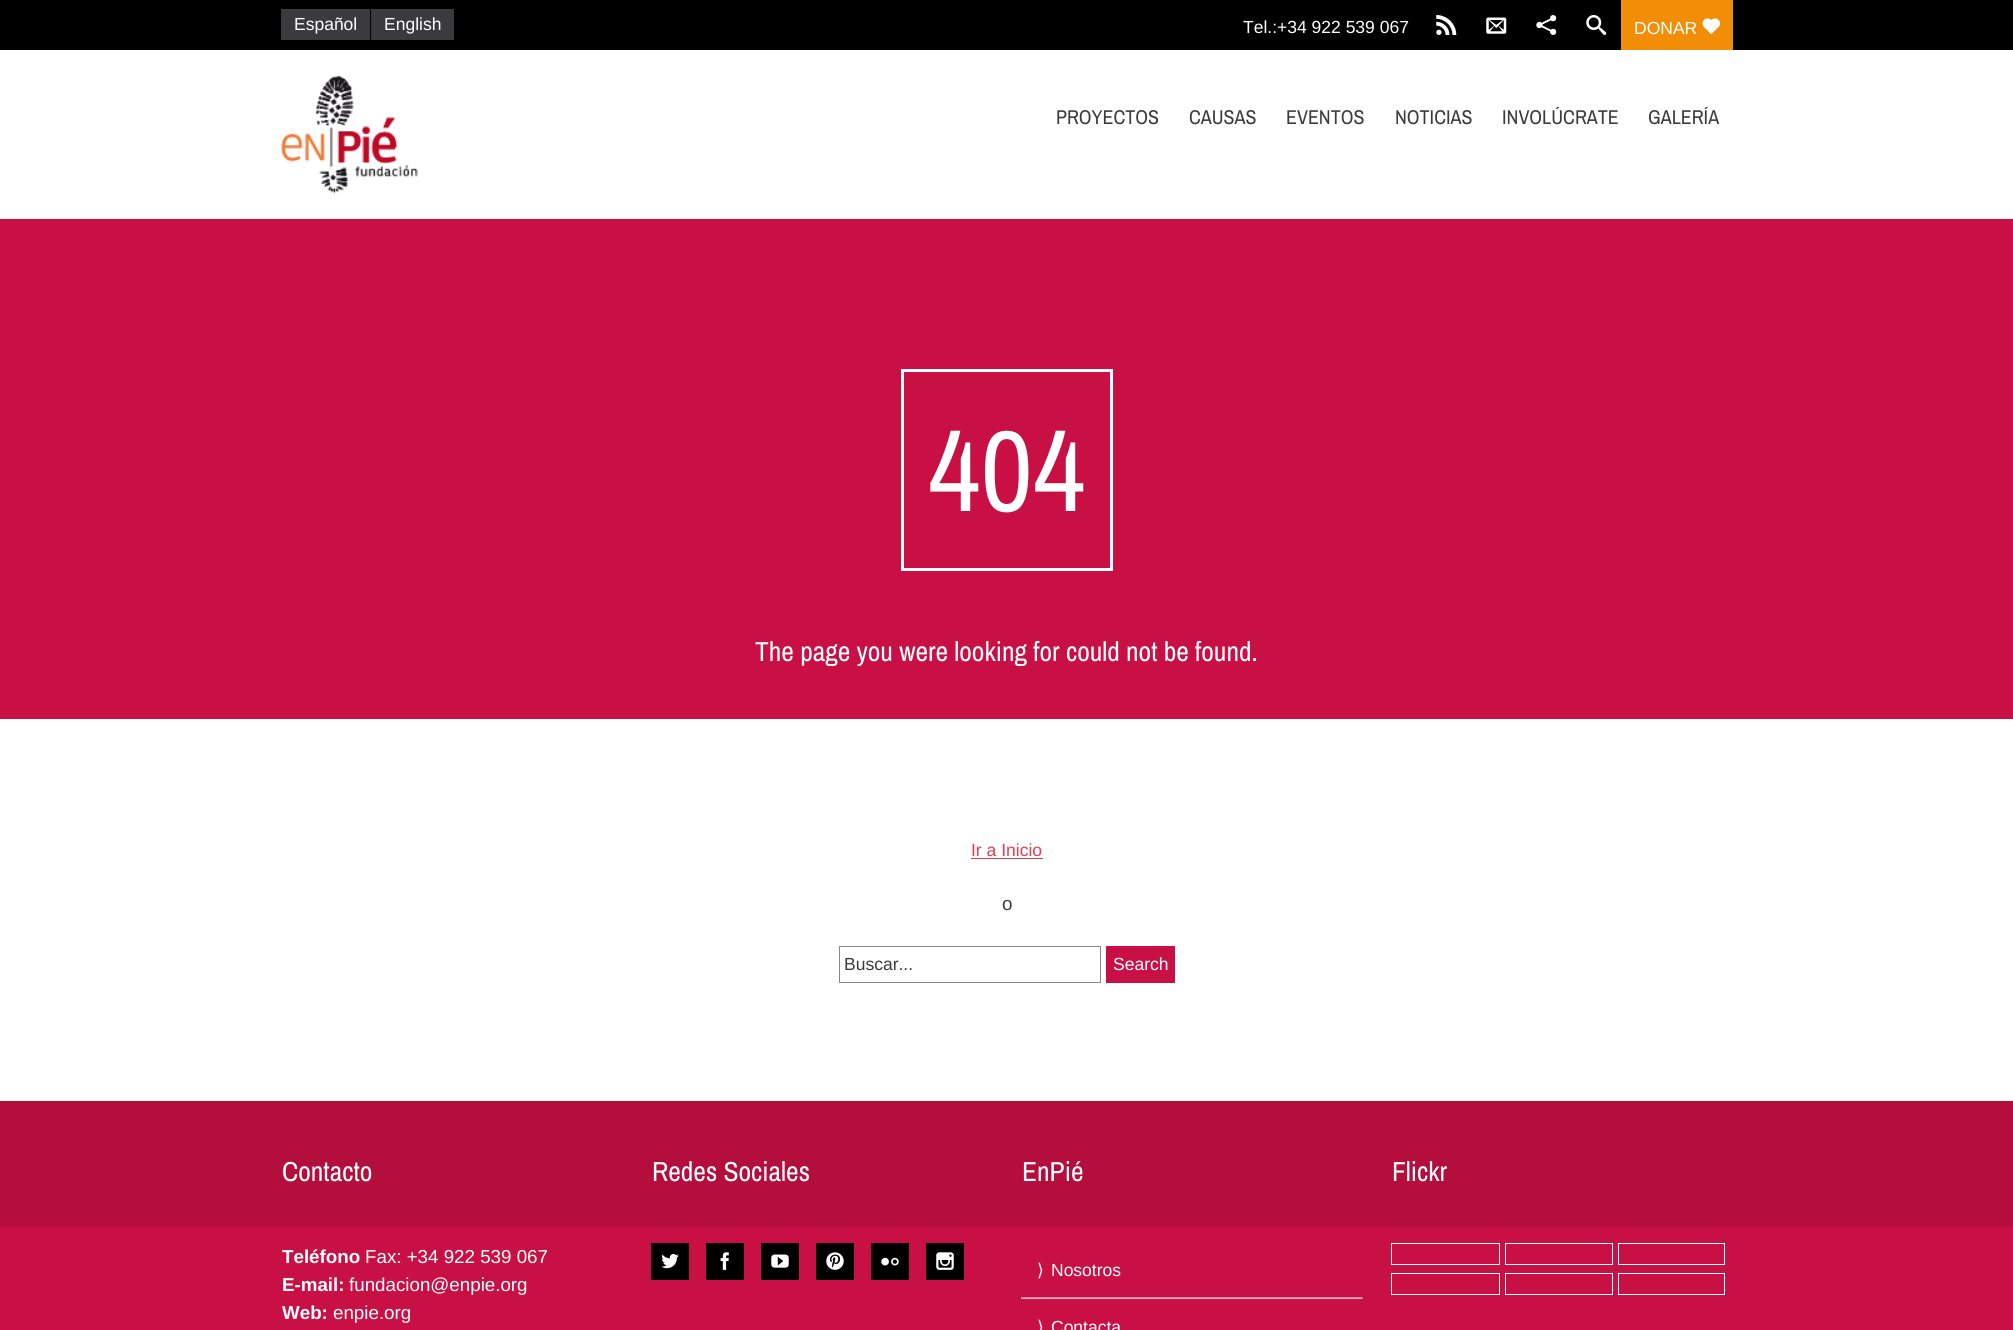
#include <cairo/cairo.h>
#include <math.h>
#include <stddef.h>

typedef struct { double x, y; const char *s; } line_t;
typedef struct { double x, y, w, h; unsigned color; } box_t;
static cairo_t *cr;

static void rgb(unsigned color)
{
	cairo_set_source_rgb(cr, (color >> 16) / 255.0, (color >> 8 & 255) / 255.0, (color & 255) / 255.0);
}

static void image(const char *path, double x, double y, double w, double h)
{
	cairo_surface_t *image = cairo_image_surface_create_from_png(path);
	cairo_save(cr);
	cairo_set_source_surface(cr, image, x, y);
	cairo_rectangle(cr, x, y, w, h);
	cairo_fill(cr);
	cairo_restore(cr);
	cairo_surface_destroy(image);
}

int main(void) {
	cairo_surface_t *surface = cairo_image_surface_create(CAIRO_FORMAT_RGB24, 2013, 1330);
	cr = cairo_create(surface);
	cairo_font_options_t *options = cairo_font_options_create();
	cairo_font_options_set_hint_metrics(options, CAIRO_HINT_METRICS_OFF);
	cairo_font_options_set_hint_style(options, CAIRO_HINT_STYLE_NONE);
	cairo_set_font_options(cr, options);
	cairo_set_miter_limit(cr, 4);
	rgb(0xffffff);
	cairo_paint(cr);
	{
		static const box_t items[] = {
			{0, 0, 2013, 50, 0x000000},
			{281, 9, 89, 31, 0x3b3b3d},
			{371, 9, 83, 31, 0x3b3b3d},
		};
		for (size_t i = 0; i < sizeof items / sizeof *items; i++) {
			rgb(items[i].color);
			cairo_rectangle(cr, items[i].x, items[i].y, items[i].w, items[i].h);
			cairo_fill(cr);
		}
	}
	image("img/1.png", 1436, 15, 21, 20);
	image("img/2.png", 1486, 17, 21, 17);
	image("img/3.png", 1536, 15, 21, 20);
	image("img/4.png", 1586, 15, 21, 20);
	rgb(0xf18d06);
	cairo_rectangle(cr, 1621, 0, 112, 50);
	cairo_fill(cr);
	image("img/5.png", 1702, 18, 18, 16);
	rgb(0xf3f3f3);
	cairo_rectangle(cr, 0, 218, 2013, 1);
	cairo_fill(cr);
	image("img/6.png", 281, 75, 137, 118);
	rgb(0xc91044);
	cairo_rectangle(cr, 0, 219, 2013, 500);
	cairo_fill(cr);
	cairo_rectangle(cr, 902.5, 370.5, 209, 199);
	rgb(0xffffff);
	cairo_set_line_width(cr, 3);
	cairo_stroke(cr);
	rgb(0xe53b51);
	cairo_rectangle(cr, 971, 858, 72, 1);
	cairo_fill(cr);
	cairo_rectangle(cr, 839.5, 946.5, 261, 36);
	rgb(0x888888);
	cairo_set_line_width(cr, 1);
	cairo_stroke(cr);
	{
		static const box_t items[] = {
			{1106, 946, 69, 37, 0xc91044},
			{0, 1227, 2013, 103, 0xc91044},
			{0, 1101, 2013, 126, 0xb40e3d},
			{651, 1243, 38, 37, 0x000000},
		};
		for (size_t i = 0; i < sizeof items / sizeof *items; i++) {
			rgb(items[i].color);
			cairo_rectangle(cr, items[i].x, items[i].y, items[i].w, items[i].h);
			cairo_fill(cr);
		}
	}
	image("img/7.png", 661, 1254, 18, 15);
	cairo_rectangle(cr, 706, 1243, 38, 37);
	cairo_fill(cr);
	image("img/8.png", 720, 1252, 9, 18);
	cairo_rectangle(cr, 761, 1243, 38, 37);
	cairo_fill(cr);
	image("img/9.png", 771, 1254, 18, 14);
	cairo_rectangle(cr, 816, 1243, 38, 37);
	cairo_fill(cr);
	image("img/10.png", 826, 1252, 18, 18);
	cairo_rectangle(cr, 871, 1243, 38, 37);
	cairo_fill(cr);
	image("img/11.png", 881, 1257, 18, 9);
	cairo_rectangle(cr, 926, 1243, 38, 37);
	cairo_fill(cr);
	image("img/12.png", 936, 1252, 18, 18);
	image("img/13.png", 1021, 1297, 342, 2);
	cairo_rectangle(cr, 1391.5, 1243.5, 108, 21);
	rgb(0xffffff);
	cairo_stroke(cr);
	cairo_rectangle(cr, 1505.5, 1243.5, 107, 21);
	cairo_stroke(cr);
	cairo_rectangle(cr, 1618.5, 1243.5, 106, 21);
	cairo_stroke(cr);
	cairo_rectangle(cr, 1391.5, 1273.5, 108, 21);
	cairo_stroke(cr);
	cairo_rectangle(cr, 1505.5, 1273.5, 107, 21);
	cairo_stroke(cr);
	cairo_rectangle(cr, 1618.5, 1273.5, 106, 21);
	cairo_stroke(cr);
	cairo_select_font_face(cr, "Arimo", CAIRO_FONT_SLANT_NORMAL, CAIRO_FONT_WEIGHT_NORMAL);
	cairo_set_font_size(cr, 17.5);
	{
		static const line_t items[] = {
			{294, 30, "Español"},
			{384, 30, "English"},
			{1243, 33, "Tel.:+34 922 539 067"},
			{1634, 34, "DONAR"},
		};
		for (size_t i = 0; i < sizeof items / sizeof *items; i++) {
			cairo_move_to(cr, items[i].x, items[i].y);
			cairo_show_text(cr, items[i].s);
		}
	}
	cairo_select_font_face(cr, "Archivo Narrow", CAIRO_FONT_SLANT_NORMAL, CAIRO_FONT_WEIGHT_NORMAL);
	cairo_set_font_size(cr, 20);
	rgb(0x3b3b3d);
	{
		static const line_t items[] = {
			{1056, 124, "PROYECTOS"},
			{1189, 124, "CAUSAS"},
			{1286, 124, "EVENTOS"},
			{1395, 124, "NOTICIAS"},
			{1502, 124, "INVOLÚCRATE"},
			{1648, 124, "GALERÍA"},
		};
		for (size_t i = 0; i < sizeof items / sizeof *items; i++) {
			cairo_move_to(cr, items[i].x, items[i].y);
			cairo_show_text(cr, items[i].s);
		}
	}
	cairo_set_font_size(cr, 115);
	rgb(0xffffff);
	cairo_move_to(cr, 928, 511);
	cairo_show_text(cr, "404");
	cairo_set_font_size(cr, 27.5);
	cairo_move_to(cr, 755, 661);
	cairo_show_text(cr, "The page you were looking for could not be found.");
	cairo_select_font_face(cr, "Arimo", CAIRO_FONT_SLANT_NORMAL, CAIRO_FONT_WEIGHT_NORMAL);
	cairo_set_font_size(cr, 17.5);
	rgb(0xe53b51);
	cairo_move_to(cr, 971, 856);
	cairo_show_text(cr, "Ir a Inicio");
	cairo_set_font_size(cr, 18.75);
	rgb(0x3b3b3d);
	cairo_move_to(cr, 1002, 910);
	cairo_show_text(cr, "o");
	cairo_set_font_size(cr, 17.5);
	cairo_move_to(cr, 844, 970);
	cairo_show_text(cr, "Buscar...");
	rgb(0xffffff);
	cairo_move_to(cr, 1113, 970);
	cairo_show_text(cr, "Search");
	cairo_select_font_face(cr, "Archivo Narrow", CAIRO_FONT_SLANT_NORMAL, CAIRO_FONT_WEIGHT_NORMAL);
	cairo_set_font_size(cr, 27.5);
	cairo_move_to(cr, 282, 1181);
	cairo_show_text(cr, "Contacto");
	cairo_select_font_face(cr, "Arimo", CAIRO_FONT_SLANT_NORMAL, CAIRO_FONT_WEIGHT_BOLD);
	cairo_set_font_size(cr, 18.75);
	cairo_move_to(cr, 282, 1263);
	cairo_show_text(cr, "Teléfono");
	cairo_select_font_face(cr, "Arimo", CAIRO_FONT_SLANT_NORMAL, CAIRO_FONT_WEIGHT_NORMAL);
	cairo_move_to(cr, 365, 1263);
	cairo_show_text(cr, "Fax: +34 922 539 067");
	cairo_select_font_face(cr, "Arimo", CAIRO_FONT_SLANT_NORMAL, CAIRO_FONT_WEIGHT_BOLD);
	cairo_move_to(cr, 282, 1291);
	cairo_show_text(cr, "E-mail:");
	cairo_select_font_face(cr, "Arimo", CAIRO_FONT_SLANT_NORMAL, CAIRO_FONT_WEIGHT_NORMAL);
	cairo_move_to(cr, 349, 1291);
	cairo_show_text(cr, "fundacion@enpie.org");
	cairo_select_font_face(cr, "Arimo", CAIRO_FONT_SLANT_NORMAL, CAIRO_FONT_WEIGHT_BOLD);
	cairo_move_to(cr, 282, 1319);
	cairo_show_text(cr, "Web:");
	cairo_select_font_face(cr, "Arimo", CAIRO_FONT_SLANT_NORMAL, CAIRO_FONT_WEIGHT_NORMAL);
	cairo_move_to(cr, 333, 1319);
	cairo_show_text(cr, "enpie.org");
	cairo_select_font_face(cr, "Archivo Narrow", CAIRO_FONT_SLANT_NORMAL, CAIRO_FONT_WEIGHT_NORMAL);
	cairo_set_font_size(cr, 27.5);
	cairo_move_to(cr, 652, 1181);
	cairo_show_text(cr, "Redes Sociales");
	cairo_move_to(cr, 1022, 1181);
	cairo_show_text(cr, "EnPié");
	cairo_select_font_face(cr, "DejaVu Sans", CAIRO_FONT_SLANT_NORMAL, CAIRO_FONT_WEIGHT_NORMAL);
	cairo_set_font_size(cr, 17.5);
	cairo_move_to(cr, 1037, 1276);
	cairo_show_text(cr, "⟩");
	cairo_select_font_face(cr, "Arimo", CAIRO_FONT_SLANT_NORMAL, CAIRO_FONT_WEIGHT_NORMAL);
	cairo_move_to(cr, 1051, 1276);
	cairo_show_text(cr, "Nosotros");
	cairo_select_font_face(cr, "DejaVu Sans", CAIRO_FONT_SLANT_NORMAL, CAIRO_FONT_WEIGHT_NORMAL);
	cairo_move_to(cr, 1037, 1333);
	cairo_show_text(cr, "⟩");
	cairo_select_font_face(cr, "Arimo", CAIRO_FONT_SLANT_NORMAL, CAIRO_FONT_WEIGHT_NORMAL);
	cairo_move_to(cr, 1051, 1333);
	cairo_show_text(cr, "Contacta");
	cairo_select_font_face(cr, "Archivo Narrow", CAIRO_FONT_SLANT_NORMAL, CAIRO_FONT_WEIGHT_NORMAL);
	cairo_set_font_size(cr, 27.5);
	cairo_move_to(cr, 1392, 1181);
	cairo_show_text(cr, "Flickr");
	cairo_surface_write_to_png(surface, "page.png");
	cairo_font_options_destroy(options);
	cairo_destroy(cr);
	cairo_surface_destroy(surface);
	return 0;
}
